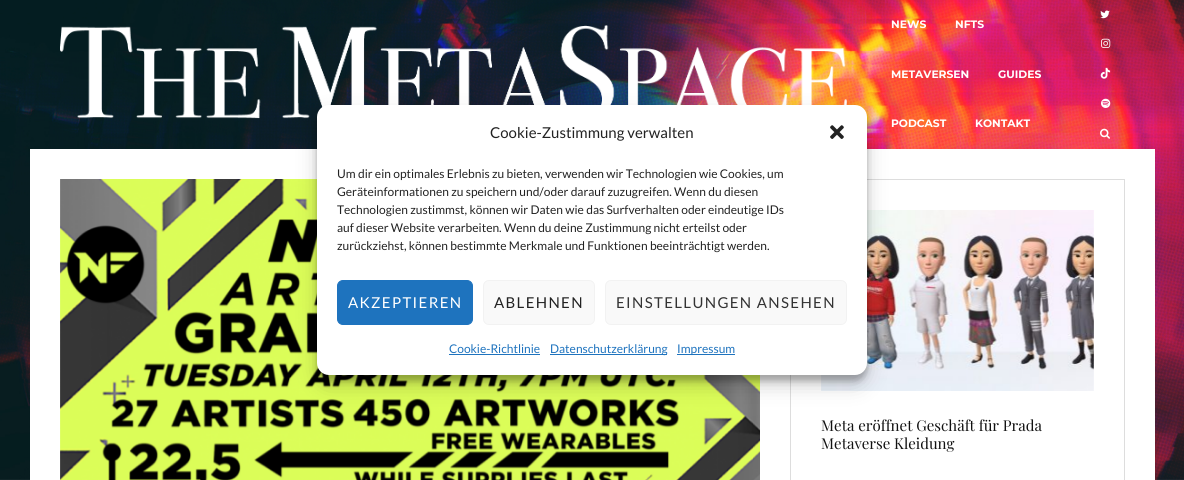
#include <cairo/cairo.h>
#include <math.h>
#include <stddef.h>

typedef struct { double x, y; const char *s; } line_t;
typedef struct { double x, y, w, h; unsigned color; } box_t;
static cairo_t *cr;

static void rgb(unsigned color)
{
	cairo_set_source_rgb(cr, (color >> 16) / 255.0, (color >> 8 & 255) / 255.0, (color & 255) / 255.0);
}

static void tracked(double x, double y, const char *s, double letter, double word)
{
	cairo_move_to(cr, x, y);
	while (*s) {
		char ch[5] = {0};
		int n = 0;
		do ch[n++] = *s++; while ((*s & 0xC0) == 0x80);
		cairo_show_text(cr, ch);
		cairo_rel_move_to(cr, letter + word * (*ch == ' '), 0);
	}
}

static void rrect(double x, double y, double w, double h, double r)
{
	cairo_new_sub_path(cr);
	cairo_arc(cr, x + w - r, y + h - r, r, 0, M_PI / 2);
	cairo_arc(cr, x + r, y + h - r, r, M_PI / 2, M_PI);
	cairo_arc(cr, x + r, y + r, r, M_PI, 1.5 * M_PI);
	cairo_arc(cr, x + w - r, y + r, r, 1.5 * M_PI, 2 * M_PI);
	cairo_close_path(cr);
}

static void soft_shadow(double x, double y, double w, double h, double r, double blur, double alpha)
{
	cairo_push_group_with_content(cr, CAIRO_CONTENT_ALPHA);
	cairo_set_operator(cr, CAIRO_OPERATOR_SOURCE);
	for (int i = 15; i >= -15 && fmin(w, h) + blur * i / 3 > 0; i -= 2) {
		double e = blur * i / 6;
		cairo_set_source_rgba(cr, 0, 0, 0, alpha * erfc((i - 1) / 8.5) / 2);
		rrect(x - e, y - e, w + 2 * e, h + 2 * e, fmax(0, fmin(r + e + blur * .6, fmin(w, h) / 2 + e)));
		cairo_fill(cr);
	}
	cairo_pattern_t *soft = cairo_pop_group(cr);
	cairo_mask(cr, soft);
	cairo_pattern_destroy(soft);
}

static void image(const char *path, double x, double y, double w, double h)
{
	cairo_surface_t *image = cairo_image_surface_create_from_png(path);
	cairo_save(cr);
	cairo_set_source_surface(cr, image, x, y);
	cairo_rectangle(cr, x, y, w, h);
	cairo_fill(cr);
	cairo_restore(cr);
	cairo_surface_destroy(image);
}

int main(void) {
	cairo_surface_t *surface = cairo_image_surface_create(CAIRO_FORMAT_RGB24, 1184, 480);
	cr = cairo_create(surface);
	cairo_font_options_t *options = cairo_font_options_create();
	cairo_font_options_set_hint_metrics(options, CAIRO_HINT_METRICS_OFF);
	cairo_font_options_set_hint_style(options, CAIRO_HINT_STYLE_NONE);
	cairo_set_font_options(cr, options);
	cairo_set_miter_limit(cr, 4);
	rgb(0xffffff);
	cairo_paint(cr);
	image("img/2.png", 0, 0, 1184, 480);
	image("img/3.png", 60, 25, 787, 94);
	rgb(0xffffff);
	cairo_rectangle(cr, 30, 149, 1125, 331);
	cairo_fill(cr);
	image("img/9.png", 60, 179, 700, 301);
	cairo_rectangle(cr, 790.5, 179.5, 334, 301);
	rgb(0xdddddd);
	cairo_set_line_width(cr, 1);
	cairo_stroke(cr);
	image("img/10.png", 821, 210, 273, 181);
	rgb(0x000000);
	soft_shadow(317, 111, 550, 270, 12, 3, 0.23);
	soft_shadow(317, 115, 550, 270, 12, 10, 0.19);
	rgb(0xffffff);
	rrect(317, 105, 550, 270, 12);
	cairo_fill(cr);
	image("img/1.png", 830, 125, 14, 14);
	rgb(0x1e73be);
	rrect(337.5, 280.5, 135, 44, 5.5);
	cairo_fill_preserve(cr);
	cairo_stroke(cr);
	rgb(0xf9f9f9);
	rrect(483.5, 280.5, 111, 44, 5.5);
	cairo_fill_preserve(cr);
	rgb(0xf2f2f2);
	cairo_stroke(cr);
	rgb(0xf9f9f9);
	rrect(605.5, 280.5, 241, 44, 5.5);
	cairo_fill_preserve(cr);
	rgb(0xf2f2f2);
	cairo_stroke(cr);
	{
		static const box_t items[] = {
			{449, 354, 91, 1, 0x1e73be},
			{550, 354, 117, 1, 0x1e73be},
			{677, 354, 58, 1, 0x1e73be},
		};
		for (size_t i = 0; i < sizeof items / sizeof *items; i++) {
			rgb(items[i].color);
			cairo_rectangle(cr, items[i].x, items[i].y, items[i].w, items[i].h);
			cairo_fill(cr);
		}
	}
	image("img/4.png", 1100, 10, 10, 9);
	image("img/5.png", 1101, 38, 10, 10);
	image("img/6.png", 1100, 67, 11, 12);
	image("img/7.png", 1101, 98, 10, 10);
	image("img/8.png", 1100, 128, 10, 11);
	cairo_select_font_face(cr, "Lato", CAIRO_FONT_SLANT_NORMAL, CAIRO_FONT_WEIGHT_NORMAL);
	cairo_set_font_size(cr, 15);
	rgb(0x222222);
	cairo_move_to(cr, 490, 138);
	cairo_show_text(cr, "Cookie-Zustimmung verwalten");
	cairo_set_font_size(cr, 12);
	{
		static const line_t items[] = {
			{337, 178, "Um dir ein optimales Erlebnis zu bieten, verwenden wir Technologien wie Cookies, um"},
			{337, 196, "Geräteinformationen zu speichern und/oder darauf zuzugreifen. Wenn du diesen"},
			{337, 214, "Technologien zustimmst, können wir Daten wie das Surfverhalten oder eindeutige IDs"},
			{337, 232, "auf dieser Website verarbeiten. Wenn du deine Zustimmung nicht erteilst oder"},
			{337, 250, "zurückziehst, können bestimmte Merkmale und Funktionen beeinträchtigt werden."},
		};
		for (size_t i = 0; i < sizeof items / sizeof *items; i++) {
			cairo_move_to(cr, items[i].x, items[i].y);
			cairo_show_text(cr, items[i].s);
		}
	}
	cairo_set_font_size(cr, 15);
	rgb(0xffffff);
	tracked(348, 308, "AKZEPTIEREN", 1.35, 0);
	rgb(0x222222);
	tracked(494, 308, "ABLEHNEN", 1.35, 0);
	rgb(0x333333);
	tracked(616, 308, "EINSTELLUNGEN ANSEHEN", 1.35, 0);
	cairo_set_font_size(cr, 12);
	rgb(0x1e73be);
	{
		static const line_t items[] = {
			{449, 353, "Cookie-Richtlinie"},
			{550, 353, "Datenschutzerklärung"},
			{677, 353, "Impressum"},
		};
		for (size_t i = 0; i < sizeof items / sizeof *items; i++) {
			cairo_move_to(cr, items[i].x, items[i].y);
			cairo_show_text(cr, items[i].s);
		}
	}
	cairo_select_font_face(cr, "Montserrat", CAIRO_FONT_SLANT_NORMAL, CAIRO_FONT_WEIGHT_BOLD);
	cairo_set_font_size(cr, 10.75);
	rgb(0xffffff);
	{
		static const line_t items[] = {
			{891, 28, "NEWS"},
			{955, 28, "NFTS"},
			{891, 78, "METAVERSEN"},
			{998, 78, "GUIDES"},
			{891, 127, "PODCAST"},
			{975, 127, "KONTAKT"},
		};
		for (size_t i = 0; i < sizeof items / sizeof *items; i++) {
			cairo_move_to(cr, items[i].x, items[i].y);
			cairo_show_text(cr, items[i].s);
		}
	}
	cairo_select_font_face(cr, "Playfair Display", CAIRO_FONT_SLANT_NORMAL, CAIRO_FONT_WEIGHT_NORMAL);
	cairo_set_font_size(cr, 15);
	rgb(0x111111);
	cairo_move_to(cr, 821, 431);
	cairo_show_text(cr, "Meta eröffnet Geschäft für Prada");
	cairo_move_to(cr, 821, 449);
	cairo_show_text(cr, "Metaverse Kleidung");
	cairo_surface_write_to_png(surface, "page.png");
	cairo_font_options_destroy(options);
	cairo_destroy(cr);
	cairo_surface_destroy(surface);
	return 0;
}
